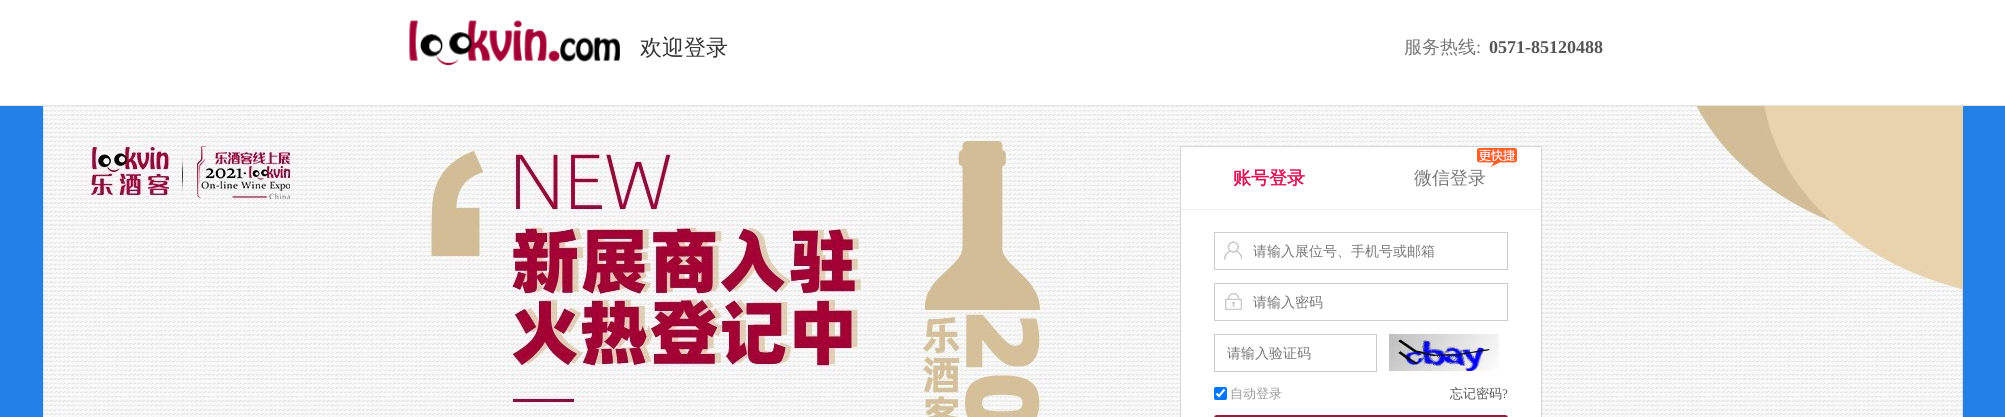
#include <cairo/cairo.h>
#include <math.h>
#include <stddef.h>

typedef struct { double x, y; const char *s; } line_t;
static cairo_t *cr;

static void rgb(unsigned color)
{
	cairo_set_source_rgb(cr, (color >> 16) / 255.0, (color >> 8 & 255) / 255.0, (color & 255) / 255.0);
}

static void rrect(double x, double y, double w, double h, double r)
{
	cairo_new_sub_path(cr);
	cairo_arc(cr, x + w - r, y + h - r, r, 0, M_PI / 2);
	cairo_arc(cr, x + r, y + h - r, r, M_PI / 2, M_PI);
	cairo_arc(cr, x + r, y + r, r, M_PI, 1.5 * M_PI);
	cairo_arc(cr, x + w - r, y + r, r, 1.5 * M_PI, 2 * M_PI);
	cairo_close_path(cr);
}

static void image(const char *path, double x, double y, double w, double h)
{
	cairo_surface_t *image = cairo_image_surface_create_from_png(path);
	cairo_save(cr);
	cairo_set_source_surface(cr, image, x, y);
	cairo_rectangle(cr, x, y, w, h);
	cairo_fill(cr);
	cairo_restore(cr);
	cairo_surface_destroy(image);
}

int main(void) {
	cairo_surface_t *surface = cairo_image_surface_create(CAIRO_FORMAT_RGB24, 2005, 417);
	cr = cairo_create(surface);
	cairo_font_options_t *options = cairo_font_options_create();
	cairo_font_options_set_hint_metrics(options, CAIRO_HINT_METRICS_OFF);
	cairo_font_options_set_hint_style(options, CAIRO_HINT_STYLE_NONE);
	cairo_set_font_options(cr, options);
	cairo_set_miter_limit(cr, 4);
	rgb(0xffffff);
	cairo_paint(cr);
	rgb(0xe5e5e5);
	cairo_rectangle(cr, 0, 105, 2005, 1);
	cairo_fill(cr);
	image("img/1.png", 409, 20, 211, 46);
	rgb(0x2380e6);
	cairo_rectangle(cr, 0, 106, 2005, 311);
	cairo_fill(cr);
	image("img/2.png", 43, 106, 1920, 311);
	rgb(0xffffff);
	cairo_rectangle(cr, 1180.5, 146.5, 361, 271);
	cairo_fill_preserve(cr);
	rgb(0xd5d5d5);
	cairo_set_line_width(cr, 1);
	cairo_stroke(cr);
	rgb(0xeeeeee);
	cairo_rectangle(cr, 1181, 209, 360, 1);
	cairo_fill(cr);
	image("img/3.png", 1477, 148, 40, 19);
	cairo_rectangle(cr, 1214.5, 232.5, 293, 37);
	rgb(0xcccccc);
	cairo_stroke(cr);
	image("img/4.png", 1224, 241, 18, 21);
	cairo_rectangle(cr, 1214.5, 283.5, 293, 37);
	cairo_stroke(cr);
	image("img/5.png", 1224, 288, 18, 23);
	cairo_rectangle(cr, 1214.5, 334.5, 162, 37);
	cairo_stroke(cr);
	image("img/6.png", 1389, 334, 110, 37);
	rgb(0x0075ff);
	rrect(1214, 387, 13, 13, 2);
	cairo_fill(cr);
	cairo_new_path(cr);
	cairo_move_to(cr, 1216.5, 393.5);
	cairo_line_to(cr, 1219, 396);
	cairo_line_to(cr, 1224.5, 389.5);
	rgb(0xffffff);
	cairo_set_line_width(cr, 2.1);
	cairo_stroke(cr);
	image("img/7.png", 1214, 415, 294, 2);
	cairo_select_font_face(cr, "WenQuanYi Zen Hei Medium", CAIRO_FONT_SLANT_NORMAL, CAIRO_FONT_WEIGHT_NORMAL);
	cairo_set_font_size(cr, 22);
	rgb(0x333333);
	cairo_move_to(cr, 640, 55);
	cairo_show_text(cr, "欢迎登录");
	cairo_set_font_size(cr, 18);
	rgb(0x777777);
	cairo_move_to(cr, 1404, 53);
	cairo_show_text(cr, "服务热线");
	cairo_select_font_face(cr, "Liberation Serif", CAIRO_FONT_SLANT_NORMAL, CAIRO_FONT_WEIGHT_NORMAL);
	cairo_move_to(cr, 1476, 53);
	cairo_show_text(cr, ":");
	cairo_select_font_face(cr, "Liberation Serif", CAIRO_FONT_SLANT_NORMAL, CAIRO_FONT_WEIGHT_BOLD);
	rgb(0x555555);
	cairo_move_to(cr, 1489, 53);
	cairo_show_text(cr, "0571-85120488");
	cairo_select_font_face(cr, "WenQuanYi Zen Hei", CAIRO_FONT_SLANT_NORMAL, CAIRO_FONT_WEIGHT_BOLD);
	rgb(0xdb1857);
	cairo_move_to(cr, 1233, 184);
	cairo_show_text(cr, "账号登录");
	cairo_select_font_face(cr, "WenQuanYi Zen Hei Medium", CAIRO_FONT_SLANT_NORMAL, CAIRO_FONT_WEIGHT_NORMAL);
	rgb(0x777777);
	cairo_move_to(cr, 1414, 184);
	cairo_show_text(cr, "微信登录");
	cairo_set_font_size(cr, 14);
	{
		static const line_t items[] = {
			{1253, 256, "请输入展位号、手机号或邮箱"},
			{1253, 307, "请输入密码"},
			{1227, 358, "请输入验证码"},
		};
		for (size_t i = 0; i < sizeof items / sizeof *items; i++) {
			cairo_move_to(cr, items[i].x, items[i].y);
			cairo_show_text(cr, items[i].s);
		}
	}
	cairo_set_font_size(cr, 13);
	rgb(0x999999);
	cairo_move_to(cr, 1230, 398);
	cairo_show_text(cr, "自动登录");
	rgb(0x555555);
	cairo_move_to(cr, 1450, 398);
	cairo_show_text(cr, "忘记密码");
	cairo_select_font_face(cr, "Liberation Serif", CAIRO_FONT_SLANT_NORMAL, CAIRO_FONT_WEIGHT_NORMAL);
	cairo_move_to(cr, 1502, 398);
	cairo_show_text(cr, "?");
	cairo_surface_write_to_png(surface, "page.png");
	cairo_font_options_destroy(options);
	cairo_destroy(cr);
	cairo_surface_destroy(surface);
	return 0;
}
